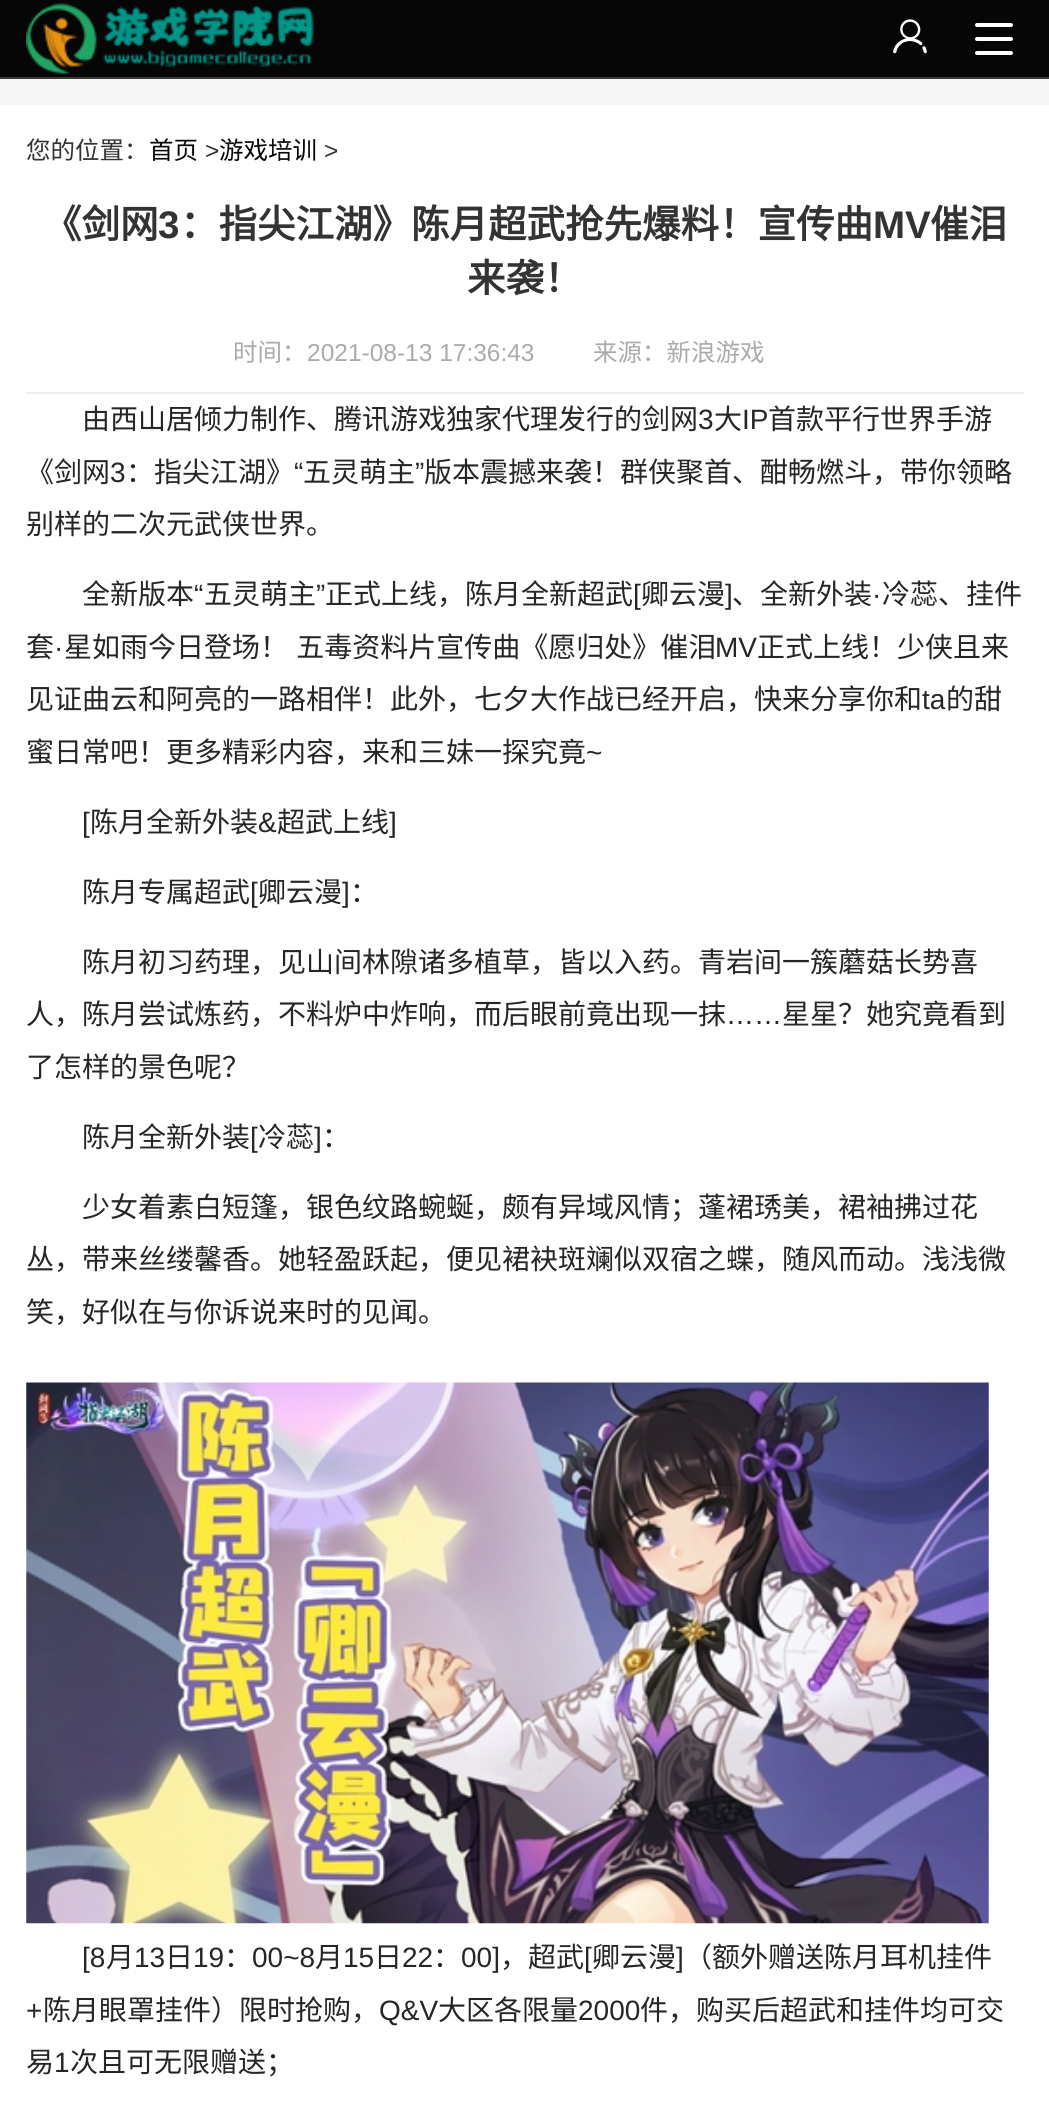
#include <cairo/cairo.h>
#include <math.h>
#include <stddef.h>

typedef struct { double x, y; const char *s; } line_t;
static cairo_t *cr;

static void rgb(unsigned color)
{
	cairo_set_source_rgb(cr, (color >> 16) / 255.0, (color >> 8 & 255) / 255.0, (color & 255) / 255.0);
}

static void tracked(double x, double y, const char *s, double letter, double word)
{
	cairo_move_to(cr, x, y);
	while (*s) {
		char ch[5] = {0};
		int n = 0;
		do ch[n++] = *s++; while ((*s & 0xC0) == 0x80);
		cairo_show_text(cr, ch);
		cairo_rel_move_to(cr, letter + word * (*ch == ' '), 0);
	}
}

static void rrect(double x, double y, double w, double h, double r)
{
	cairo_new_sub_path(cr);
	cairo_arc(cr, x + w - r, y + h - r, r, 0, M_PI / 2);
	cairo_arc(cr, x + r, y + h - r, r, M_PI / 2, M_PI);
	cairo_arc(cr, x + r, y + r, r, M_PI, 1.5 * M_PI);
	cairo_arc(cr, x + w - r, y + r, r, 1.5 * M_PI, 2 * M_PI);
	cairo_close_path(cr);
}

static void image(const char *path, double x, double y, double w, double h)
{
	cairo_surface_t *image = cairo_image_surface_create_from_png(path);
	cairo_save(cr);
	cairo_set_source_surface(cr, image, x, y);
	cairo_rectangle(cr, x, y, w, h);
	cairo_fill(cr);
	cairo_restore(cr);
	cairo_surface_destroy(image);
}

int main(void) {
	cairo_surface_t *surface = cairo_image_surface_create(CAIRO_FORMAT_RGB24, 1049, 2104);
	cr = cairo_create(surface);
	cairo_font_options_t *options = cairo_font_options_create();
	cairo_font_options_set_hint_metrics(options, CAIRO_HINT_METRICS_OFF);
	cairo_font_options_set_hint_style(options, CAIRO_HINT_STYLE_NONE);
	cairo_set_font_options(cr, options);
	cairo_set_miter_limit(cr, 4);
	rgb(0xf6f6f6);
	cairo_paint(cr);
	rgb(0x060606);
	cairo_rectangle(cr, 0, 0, 1049, 77);
	cairo_fill(cr);
	rgb(0x383838);
	cairo_rectangle(cr, 0, 77, 1049, 2);
	cairo_fill(cr);
	image("img/1.png", 26, 3, 288, 71);
	image("img/2.png", 893, 19, 34, 35);
	rgb(0xffffff);
	rrect(975, 23, 38, 4, 2);
	cairo_fill(cr);
	rrect(975, 37, 38, 4, 2);
	cairo_fill(cr);
	rrect(975, 51, 38, 4, 2);
	cairo_fill(cr);
	cairo_rectangle(cr, 0, 105, 1049, 1999);
	cairo_fill(cr);
	rgb(0xeeeeee);
	cairo_rectangle(cr, 26, 392, 998, 2);
	cairo_fill(cr);
	image("img/3.png", 26, 1382, 963, 542);
	cairo_select_font_face(cr, "Noto Sans CJK SC", CAIRO_FONT_SLANT_NORMAL, CAIRO_FONT_WEIGHT_NORMAL);
	cairo_set_font_size(cr, 24.5);
	rgb(0x333333);
	cairo_move_to(cr, 26, 159);
	cairo_show_text(cr, "您的位置：");
	rgb(0x060606);
	cairo_move_to(cr, 149, 159);
	cairo_show_text(cr, "首页");
	cairo_select_font_face(cr, "Liberation Sans", CAIRO_FONT_SLANT_NORMAL, CAIRO_FONT_WEIGHT_NORMAL);
	rgb(0x333333);
	cairo_move_to(cr, 205, 159);
	cairo_show_text(cr, ">");
	cairo_select_font_face(cr, "Noto Sans CJK SC", CAIRO_FONT_SLANT_NORMAL, CAIRO_FONT_WEIGHT_NORMAL);
	rgb(0x060606);
	cairo_move_to(cr, 219, 159);
	cairo_show_text(cr, "游戏培训");
	cairo_select_font_face(cr, "Liberation Sans", CAIRO_FONT_SLANT_NORMAL, CAIRO_FONT_WEIGHT_NORMAL);
	rgb(0x333333);
	cairo_move_to(cr, 324, 159);
	cairo_show_text(cr, ">");
	cairo_select_font_face(cr, "Noto Sans CJK SC", CAIRO_FONT_SLANT_NORMAL, CAIRO_FONT_WEIGHT_BOLD);
	cairo_set_font_size(cr, 38.5);
	cairo_move_to(cr, 43, 238);
	cairo_show_text(cr, "《剑网");
	cairo_select_font_face(cr, "Liberation Sans", CAIRO_FONT_SLANT_NORMAL, CAIRO_FONT_WEIGHT_BOLD);
	cairo_move_to(cr, 158, 238);
	cairo_show_text(cr, "3");
	cairo_select_font_face(cr, "Noto Sans CJK SC", CAIRO_FONT_SLANT_NORMAL, CAIRO_FONT_WEIGHT_BOLD);
	cairo_move_to(cr, 180, 238);
	cairo_show_text(cr, "：指尖江湖》陈月超武抢先爆料！宣传曲");
	cairo_select_font_face(cr, "Liberation Sans", CAIRO_FONT_SLANT_NORMAL, CAIRO_FONT_WEIGHT_BOLD);
	cairo_move_to(cr, 873, 238);
	cairo_show_text(cr, "MV");
	cairo_select_font_face(cr, "Noto Sans CJK SC", CAIRO_FONT_SLANT_NORMAL, CAIRO_FONT_WEIGHT_BOLD);
	cairo_move_to(cr, 930, 238);
	cairo_show_text(cr, "催泪");
	cairo_move_to(cr, 467, 292);
	cairo_show_text(cr, "来袭！");
	cairo_select_font_face(cr, "Noto Sans CJK SC", CAIRO_FONT_SLANT_NORMAL, CAIRO_FONT_WEIGHT_NORMAL);
	cairo_set_font_size(cr, 24.5);
	rgb(0xababab);
	cairo_move_to(cr, 233, 361);
	cairo_show_text(cr, "时间：");
	cairo_select_font_face(cr, "Liberation Sans", CAIRO_FONT_SLANT_NORMAL, CAIRO_FONT_WEIGHT_NORMAL);
	cairo_move_to(cr, 307, 361);
	cairo_show_text(cr, "2021-08-13 17:36:43");
	cairo_select_font_face(cr, "Noto Sans CJK SC", CAIRO_FONT_SLANT_NORMAL, CAIRO_FONT_WEIGHT_NORMAL);
	cairo_move_to(cr, 593, 361);
	cairo_show_text(cr, "来源：新浪游戏");
	cairo_set_font_size(cr, 28);
	rgb(0x262626);
	cairo_move_to(cr, 82, 429);
	cairo_show_text(cr, "由西山居倾力制作、腾讯游戏独家代理发行的剑网");
	cairo_select_font_face(cr, "Liberation Sans", CAIRO_FONT_SLANT_NORMAL, CAIRO_FONT_WEIGHT_NORMAL);
	cairo_move_to(cr, 698, 429);
	cairo_show_text(cr, "3");
	cairo_select_font_face(cr, "Noto Sans CJK SC", CAIRO_FONT_SLANT_NORMAL, CAIRO_FONT_WEIGHT_NORMAL);
	cairo_move_to(cr, 714, 429);
	cairo_show_text(cr, "大");
	cairo_select_font_face(cr, "Liberation Sans", CAIRO_FONT_SLANT_NORMAL, CAIRO_FONT_WEIGHT_NORMAL);
	cairo_move_to(cr, 742, 429);
	cairo_show_text(cr, "IP");
	cairo_select_font_face(cr, "Noto Sans CJK SC", CAIRO_FONT_SLANT_NORMAL, CAIRO_FONT_WEIGHT_NORMAL);
	cairo_move_to(cr, 768, 429);
	cairo_show_text(cr, "首款平行世界手游");
	cairo_move_to(cr, 26, 482);
	cairo_show_text(cr, "《剑网");
	cairo_select_font_face(cr, "Liberation Sans", CAIRO_FONT_SLANT_NORMAL, CAIRO_FONT_WEIGHT_NORMAL);
	cairo_move_to(cr, 110, 482);
	cairo_show_text(cr, "3");
	cairo_select_font_face(cr, "Noto Sans CJK SC", CAIRO_FONT_SLANT_NORMAL, CAIRO_FONT_WEIGHT_NORMAL);
	cairo_move_to(cr, 126, 482);
	cairo_show_text(cr, "：指尖江湖》");
	cairo_select_font_face(cr, "Liberation Sans", CAIRO_FONT_SLANT_NORMAL, CAIRO_FONT_WEIGHT_NORMAL);
	cairo_move_to(cr, 294, 482);
	cairo_show_text(cr, "“");
	cairo_select_font_face(cr, "Noto Sans CJK SC", CAIRO_FONT_SLANT_NORMAL, CAIRO_FONT_WEIGHT_NORMAL);
	cairo_move_to(cr, 303, 482);
	cairo_show_text(cr, "五灵萌主");
	cairo_select_font_face(cr, "Liberation Sans", CAIRO_FONT_SLANT_NORMAL, CAIRO_FONT_WEIGHT_NORMAL);
	cairo_move_to(cr, 415, 482);
	cairo_show_text(cr, "”");
	cairo_select_font_face(cr, "Noto Sans CJK SC", CAIRO_FONT_SLANT_NORMAL, CAIRO_FONT_WEIGHT_NORMAL);
	{
		static const line_t items[] = {
			{424, 482, "版本震撼来袭！群侠聚首、酣畅燃斗，带你领略"},
			{26, 534, "别样的二次元武侠世界。"},
			{82, 604, "全新版本"},
		};
		for (size_t i = 0; i < sizeof items / sizeof *items; i++) {
			cairo_move_to(cr, items[i].x, items[i].y);
			cairo_show_text(cr, items[i].s);
		}
	}
	cairo_select_font_face(cr, "Liberation Sans", CAIRO_FONT_SLANT_NORMAL, CAIRO_FONT_WEIGHT_NORMAL);
	cairo_move_to(cr, 194, 604);
	cairo_show_text(cr, "“");
	cairo_select_font_face(cr, "Noto Sans CJK SC", CAIRO_FONT_SLANT_NORMAL, CAIRO_FONT_WEIGHT_NORMAL);
	cairo_move_to(cr, 204, 604);
	cairo_show_text(cr, "五灵萌主");
	cairo_select_font_face(cr, "Liberation Sans", CAIRO_FONT_SLANT_NORMAL, CAIRO_FONT_WEIGHT_NORMAL);
	cairo_move_to(cr, 316, 604);
	cairo_show_text(cr, "”");
	cairo_select_font_face(cr, "Noto Sans CJK SC", CAIRO_FONT_SLANT_NORMAL, CAIRO_FONT_WEIGHT_NORMAL);
	cairo_move_to(cr, 325, 604);
	cairo_show_text(cr, "正式上线，陈月全新超武");
	cairo_select_font_face(cr, "Liberation Sans", CAIRO_FONT_SLANT_NORMAL, CAIRO_FONT_WEIGHT_NORMAL);
	cairo_move_to(cr, 633, 604);
	cairo_show_text(cr, "[");
	cairo_select_font_face(cr, "Noto Sans CJK SC", CAIRO_FONT_SLANT_NORMAL, CAIRO_FONT_WEIGHT_NORMAL);
	cairo_move_to(cr, 641, 604);
	cairo_show_text(cr, "卿云漫");
	cairo_select_font_face(cr, "Liberation Sans", CAIRO_FONT_SLANT_NORMAL, CAIRO_FONT_WEIGHT_NORMAL);
	cairo_move_to(cr, 725, 604);
	cairo_show_text(cr, "]");
	cairo_select_font_face(cr, "Noto Sans CJK SC", CAIRO_FONT_SLANT_NORMAL, CAIRO_FONT_WEIGHT_NORMAL);
	cairo_move_to(cr, 732, 604);
	cairo_show_text(cr, "、全新外装");
	cairo_move_to(cr, 882, 604);
	cairo_show_text(cr, "冷蕊、挂件");
	cairo_select_font_face(cr, "Liberation Sans", CAIRO_FONT_SLANT_NORMAL, CAIRO_FONT_WEIGHT_NORMAL);
	cairo_move_to(cr, 872, 604);
	cairo_show_text(cr, "·");
	cairo_select_font_face(cr, "Noto Sans CJK SC", CAIRO_FONT_SLANT_NORMAL, CAIRO_FONT_WEIGHT_NORMAL);
	cairo_move_to(cr, 26, 657);
	cairo_show_text(cr, "套");
	cairo_select_font_face(cr, "Liberation Sans", CAIRO_FONT_SLANT_NORMAL, CAIRO_FONT_WEIGHT_NORMAL);
	cairo_move_to(cr, 54, 657);
	cairo_show_text(cr, "·");
	cairo_select_font_face(cr, "Noto Sans CJK SC", CAIRO_FONT_SLANT_NORMAL, CAIRO_FONT_WEIGHT_NORMAL);
	tracked(64, 657, "星如雨今日登场！ 五毒资料片宣传曲《愿归处》催泪", 0, 2);
	cairo_select_font_face(cr, "Liberation Sans", CAIRO_FONT_SLANT_NORMAL, CAIRO_FONT_WEIGHT_NORMAL);
	cairo_move_to(cr, 715, 657);
	cairo_show_text(cr, "MV");
	cairo_select_font_face(cr, "Noto Sans CJK SC", CAIRO_FONT_SLANT_NORMAL, CAIRO_FONT_WEIGHT_NORMAL);
	cairo_move_to(cr, 757, 657);
	cairo_show_text(cr, "正式上线！少侠且来");
	cairo_move_to(cr, 26, 709);
	cairo_show_text(cr, "见证曲云和阿亮的一路相伴！此外，七夕大作战已经开启，快来分享你和");
	cairo_select_font_face(cr, "Liberation Sans", CAIRO_FONT_SLANT_NORMAL, CAIRO_FONT_WEIGHT_NORMAL);
	cairo_move_to(cr, 922, 709);
	cairo_show_text(cr, "ta");
	cairo_select_font_face(cr, "Noto Sans CJK SC", CAIRO_FONT_SLANT_NORMAL, CAIRO_FONT_WEIGHT_NORMAL);
	cairo_move_to(cr, 946, 709);
	cairo_show_text(cr, "的甜");
	cairo_move_to(cr, 26, 762);
	cairo_show_text(cr, "蜜日常吧！更多精彩内容，来和三妹一探究竟");
	cairo_select_font_face(cr, "Liberation Sans", CAIRO_FONT_SLANT_NORMAL, CAIRO_FONT_WEIGHT_NORMAL);
	cairo_move_to(cr, 586, 762);
	cairo_show_text(cr, "~");
	cairo_move_to(cr, 82, 832);
	cairo_show_text(cr, "[");
	cairo_select_font_face(cr, "Noto Sans CJK SC", CAIRO_FONT_SLANT_NORMAL, CAIRO_FONT_WEIGHT_NORMAL);
	cairo_move_to(cr, 90, 832);
	cairo_show_text(cr, "陈月全新外装");
	cairo_select_font_face(cr, "Liberation Sans", CAIRO_FONT_SLANT_NORMAL, CAIRO_FONT_WEIGHT_NORMAL);
	cairo_move_to(cr, 258, 832);
	cairo_show_text(cr, "&");
	cairo_select_font_face(cr, "Noto Sans CJK SC", CAIRO_FONT_SLANT_NORMAL, CAIRO_FONT_WEIGHT_NORMAL);
	cairo_move_to(cr, 277, 832);
	cairo_show_text(cr, "超武上线");
	cairo_select_font_face(cr, "Liberation Sans", CAIRO_FONT_SLANT_NORMAL, CAIRO_FONT_WEIGHT_NORMAL);
	cairo_move_to(cr, 389, 832);
	cairo_show_text(cr, "]");
	cairo_select_font_face(cr, "Noto Sans CJK SC", CAIRO_FONT_SLANT_NORMAL, CAIRO_FONT_WEIGHT_NORMAL);
	cairo_move_to(cr, 82, 902);
	cairo_show_text(cr, "陈月专属超武");
	cairo_select_font_face(cr, "Liberation Sans", CAIRO_FONT_SLANT_NORMAL, CAIRO_FONT_WEIGHT_NORMAL);
	cairo_move_to(cr, 250, 902);
	cairo_show_text(cr, "[");
	cairo_select_font_face(cr, "Noto Sans CJK SC", CAIRO_FONT_SLANT_NORMAL, CAIRO_FONT_WEIGHT_NORMAL);
	cairo_move_to(cr, 258, 902);
	cairo_show_text(cr, "卿云漫");
	cairo_select_font_face(cr, "Liberation Sans", CAIRO_FONT_SLANT_NORMAL, CAIRO_FONT_WEIGHT_NORMAL);
	cairo_move_to(cr, 342, 902);
	cairo_show_text(cr, "]");
	cairo_select_font_face(cr, "Noto Sans CJK SC", CAIRO_FONT_SLANT_NORMAL, CAIRO_FONT_WEIGHT_NORMAL);
	{
		static const line_t items[] = {
			{350, 902, "："},
			{82, 972, "陈月初习药理，见山间林隙诸多植草，皆以入药。青岩间一簇蘑菇长势喜"},
			{26, 1024, "人，陈月尝试炼药，不料炉中炸响，而后眼前竟出现一抹"},
		};
		for (size_t i = 0; i < sizeof items / sizeof *items; i++) {
			cairo_move_to(cr, items[i].x, items[i].y);
			cairo_show_text(cr, items[i].s);
		}
	}
	cairo_select_font_face(cr, "Liberation Sans", CAIRO_FONT_SLANT_NORMAL, CAIRO_FONT_WEIGHT_NORMAL);
	cairo_move_to(cr, 726, 1024);
	cairo_show_text(cr, "……");
	cairo_select_font_face(cr, "Noto Sans CJK SC", CAIRO_FONT_SLANT_NORMAL, CAIRO_FONT_WEIGHT_NORMAL);
	{
		static const line_t items[] = {
			{782, 1024, "星星？她究竟看到"},
			{26, 1077, "了怎样的景色呢？"},
			{82, 1147, "陈月全新外装"},
		};
		for (size_t i = 0; i < sizeof items / sizeof *items; i++) {
			cairo_move_to(cr, items[i].x, items[i].y);
			cairo_show_text(cr, items[i].s);
		}
	}
	cairo_select_font_face(cr, "Liberation Sans", CAIRO_FONT_SLANT_NORMAL, CAIRO_FONT_WEIGHT_NORMAL);
	cairo_move_to(cr, 250, 1147);
	cairo_show_text(cr, "[");
	cairo_select_font_face(cr, "Noto Sans CJK SC", CAIRO_FONT_SLANT_NORMAL, CAIRO_FONT_WEIGHT_NORMAL);
	cairo_move_to(cr, 258, 1147);
	cairo_show_text(cr, "冷蕊");
	cairo_select_font_face(cr, "Liberation Sans", CAIRO_FONT_SLANT_NORMAL, CAIRO_FONT_WEIGHT_NORMAL);
	cairo_move_to(cr, 314, 1147);
	cairo_show_text(cr, "]");
	cairo_select_font_face(cr, "Noto Sans CJK SC", CAIRO_FONT_SLANT_NORMAL, CAIRO_FONT_WEIGHT_NORMAL);
	{
		static const line_t items[] = {
			{322, 1147, "："},
			{82, 1217, "少女着素白短篷，银色纹路蜿蜒，颇有异域风情；蓬裙琇美，裙袖拂过花"},
			{26, 1269, "丛，带来丝缕馨香。她轻盈跃起，便见裙袂斑斓似双宿之蝶，随风而动。浅浅微"},
			{26, 1322, "笑，好似在与你诉说来时的见闻。"},
		};
		for (size_t i = 0; i < sizeof items / sizeof *items; i++) {
			cairo_move_to(cr, items[i].x, items[i].y);
			cairo_show_text(cr, items[i].s);
		}
	}
	cairo_select_font_face(cr, "Liberation Sans", CAIRO_FONT_SLANT_NORMAL, CAIRO_FONT_WEIGHT_NORMAL);
	cairo_move_to(cr, 82, 1967);
	cairo_show_text(cr, "[8");
	cairo_select_font_face(cr, "Noto Sans CJK SC", CAIRO_FONT_SLANT_NORMAL, CAIRO_FONT_WEIGHT_NORMAL);
	cairo_move_to(cr, 106, 1967);
	cairo_show_text(cr, "月");
	cairo_select_font_face(cr, "Liberation Sans", CAIRO_FONT_SLANT_NORMAL, CAIRO_FONT_WEIGHT_NORMAL);
	cairo_move_to(cr, 134, 1967);
	cairo_show_text(cr, "13");
	cairo_select_font_face(cr, "Noto Sans CJK SC", CAIRO_FONT_SLANT_NORMAL, CAIRO_FONT_WEIGHT_NORMAL);
	cairo_move_to(cr, 165, 1967);
	cairo_show_text(cr, "日");
	cairo_select_font_face(cr, "Liberation Sans", CAIRO_FONT_SLANT_NORMAL, CAIRO_FONT_WEIGHT_NORMAL);
	cairo_move_to(cr, 193, 1967);
	cairo_show_text(cr, "19");
	cairo_select_font_face(cr, "Noto Sans CJK SC", CAIRO_FONT_SLANT_NORMAL, CAIRO_FONT_WEIGHT_NORMAL);
	cairo_move_to(cr, 224, 1967);
	cairo_show_text(cr, "：");
	cairo_select_font_face(cr, "Liberation Sans", CAIRO_FONT_SLANT_NORMAL, CAIRO_FONT_WEIGHT_NORMAL);
	cairo_move_to(cr, 252, 1967);
	cairo_show_text(cr, "00~8");
	cairo_select_font_face(cr, "Noto Sans CJK SC", CAIRO_FONT_SLANT_NORMAL, CAIRO_FONT_WEIGHT_NORMAL);
	cairo_move_to(cr, 315, 1967);
	cairo_show_text(cr, "月");
	cairo_select_font_face(cr, "Liberation Sans", CAIRO_FONT_SLANT_NORMAL, CAIRO_FONT_WEIGHT_NORMAL);
	cairo_move_to(cr, 343, 1967);
	cairo_show_text(cr, "15");
	cairo_select_font_face(cr, "Noto Sans CJK SC", CAIRO_FONT_SLANT_NORMAL, CAIRO_FONT_WEIGHT_NORMAL);
	cairo_move_to(cr, 374, 1967);
	cairo_show_text(cr, "日");
	cairo_select_font_face(cr, "Liberation Sans", CAIRO_FONT_SLANT_NORMAL, CAIRO_FONT_WEIGHT_NORMAL);
	cairo_move_to(cr, 402, 1967);
	cairo_show_text(cr, "22");
	cairo_select_font_face(cr, "Noto Sans CJK SC", CAIRO_FONT_SLANT_NORMAL, CAIRO_FONT_WEIGHT_NORMAL);
	cairo_move_to(cr, 433, 1967);
	cairo_show_text(cr, "：");
	cairo_select_font_face(cr, "Liberation Sans", CAIRO_FONT_SLANT_NORMAL, CAIRO_FONT_WEIGHT_NORMAL);
	cairo_move_to(cr, 461, 1967);
	cairo_show_text(cr, "00]");
	cairo_select_font_face(cr, "Noto Sans CJK SC", CAIRO_FONT_SLANT_NORMAL, CAIRO_FONT_WEIGHT_NORMAL);
	cairo_move_to(cr, 500, 1967);
	cairo_show_text(cr, "，超武");
	cairo_select_font_face(cr, "Liberation Sans", CAIRO_FONT_SLANT_NORMAL, CAIRO_FONT_WEIGHT_NORMAL);
	cairo_move_to(cr, 584, 1967);
	cairo_show_text(cr, "[");
	cairo_select_font_face(cr, "Noto Sans CJK SC", CAIRO_FONT_SLANT_NORMAL, CAIRO_FONT_WEIGHT_NORMAL);
	cairo_move_to(cr, 592, 1967);
	cairo_show_text(cr, "卿云漫");
	cairo_select_font_face(cr, "Liberation Sans", CAIRO_FONT_SLANT_NORMAL, CAIRO_FONT_WEIGHT_NORMAL);
	cairo_move_to(cr, 676, 1967);
	cairo_show_text(cr, "]");
	cairo_select_font_face(cr, "Noto Sans CJK SC", CAIRO_FONT_SLANT_NORMAL, CAIRO_FONT_WEIGHT_NORMAL);
	cairo_move_to(cr, 684, 1967);
	cairo_show_text(cr, "（额外赠送陈月耳机挂件");
	cairo_select_font_face(cr, "Liberation Sans", CAIRO_FONT_SLANT_NORMAL, CAIRO_FONT_WEIGHT_NORMAL);
	cairo_move_to(cr, 26, 2020);
	cairo_show_text(cr, "+");
	cairo_select_font_face(cr, "Noto Sans CJK SC", CAIRO_FONT_SLANT_NORMAL, CAIRO_FONT_WEIGHT_NORMAL);
	cairo_move_to(cr, 43, 2020);
	cairo_show_text(cr, "陈月眼罩挂件）限时抢购，");
	cairo_select_font_face(cr, "Liberation Sans", CAIRO_FONT_SLANT_NORMAL, CAIRO_FONT_WEIGHT_NORMAL);
	cairo_move_to(cr, 379, 2020);
	cairo_show_text(cr, "Q&V");
	cairo_select_font_face(cr, "Noto Sans CJK SC", CAIRO_FONT_SLANT_NORMAL, CAIRO_FONT_WEIGHT_NORMAL);
	cairo_move_to(cr, 438, 2020);
	cairo_show_text(cr, "大区各限量");
	cairo_select_font_face(cr, "Liberation Sans", CAIRO_FONT_SLANT_NORMAL, CAIRO_FONT_WEIGHT_NORMAL);
	cairo_move_to(cr, 578, 2020);
	cairo_show_text(cr, "2000");
	cairo_select_font_face(cr, "Noto Sans CJK SC", CAIRO_FONT_SLANT_NORMAL, CAIRO_FONT_WEIGHT_NORMAL);
	cairo_move_to(cr, 640, 2020);
	cairo_show_text(cr, "件，购买后超武和挂件均可交");
	cairo_move_to(cr, 26, 2072);
	cairo_show_text(cr, "易");
	cairo_select_font_face(cr, "Liberation Sans", CAIRO_FONT_SLANT_NORMAL, CAIRO_FONT_WEIGHT_NORMAL);
	cairo_move_to(cr, 54, 2072);
	cairo_show_text(cr, "1");
	cairo_select_font_face(cr, "Noto Sans CJK SC", CAIRO_FONT_SLANT_NORMAL, CAIRO_FONT_WEIGHT_NORMAL);
	cairo_move_to(cr, 70, 2072);
	cairo_show_text(cr, "次且可无限赠送；");
	cairo_surface_write_to_png(surface, "page.png");
	cairo_font_options_destroy(options);
	cairo_destroy(cr);
	cairo_surface_destroy(surface);
	return 0;
}
